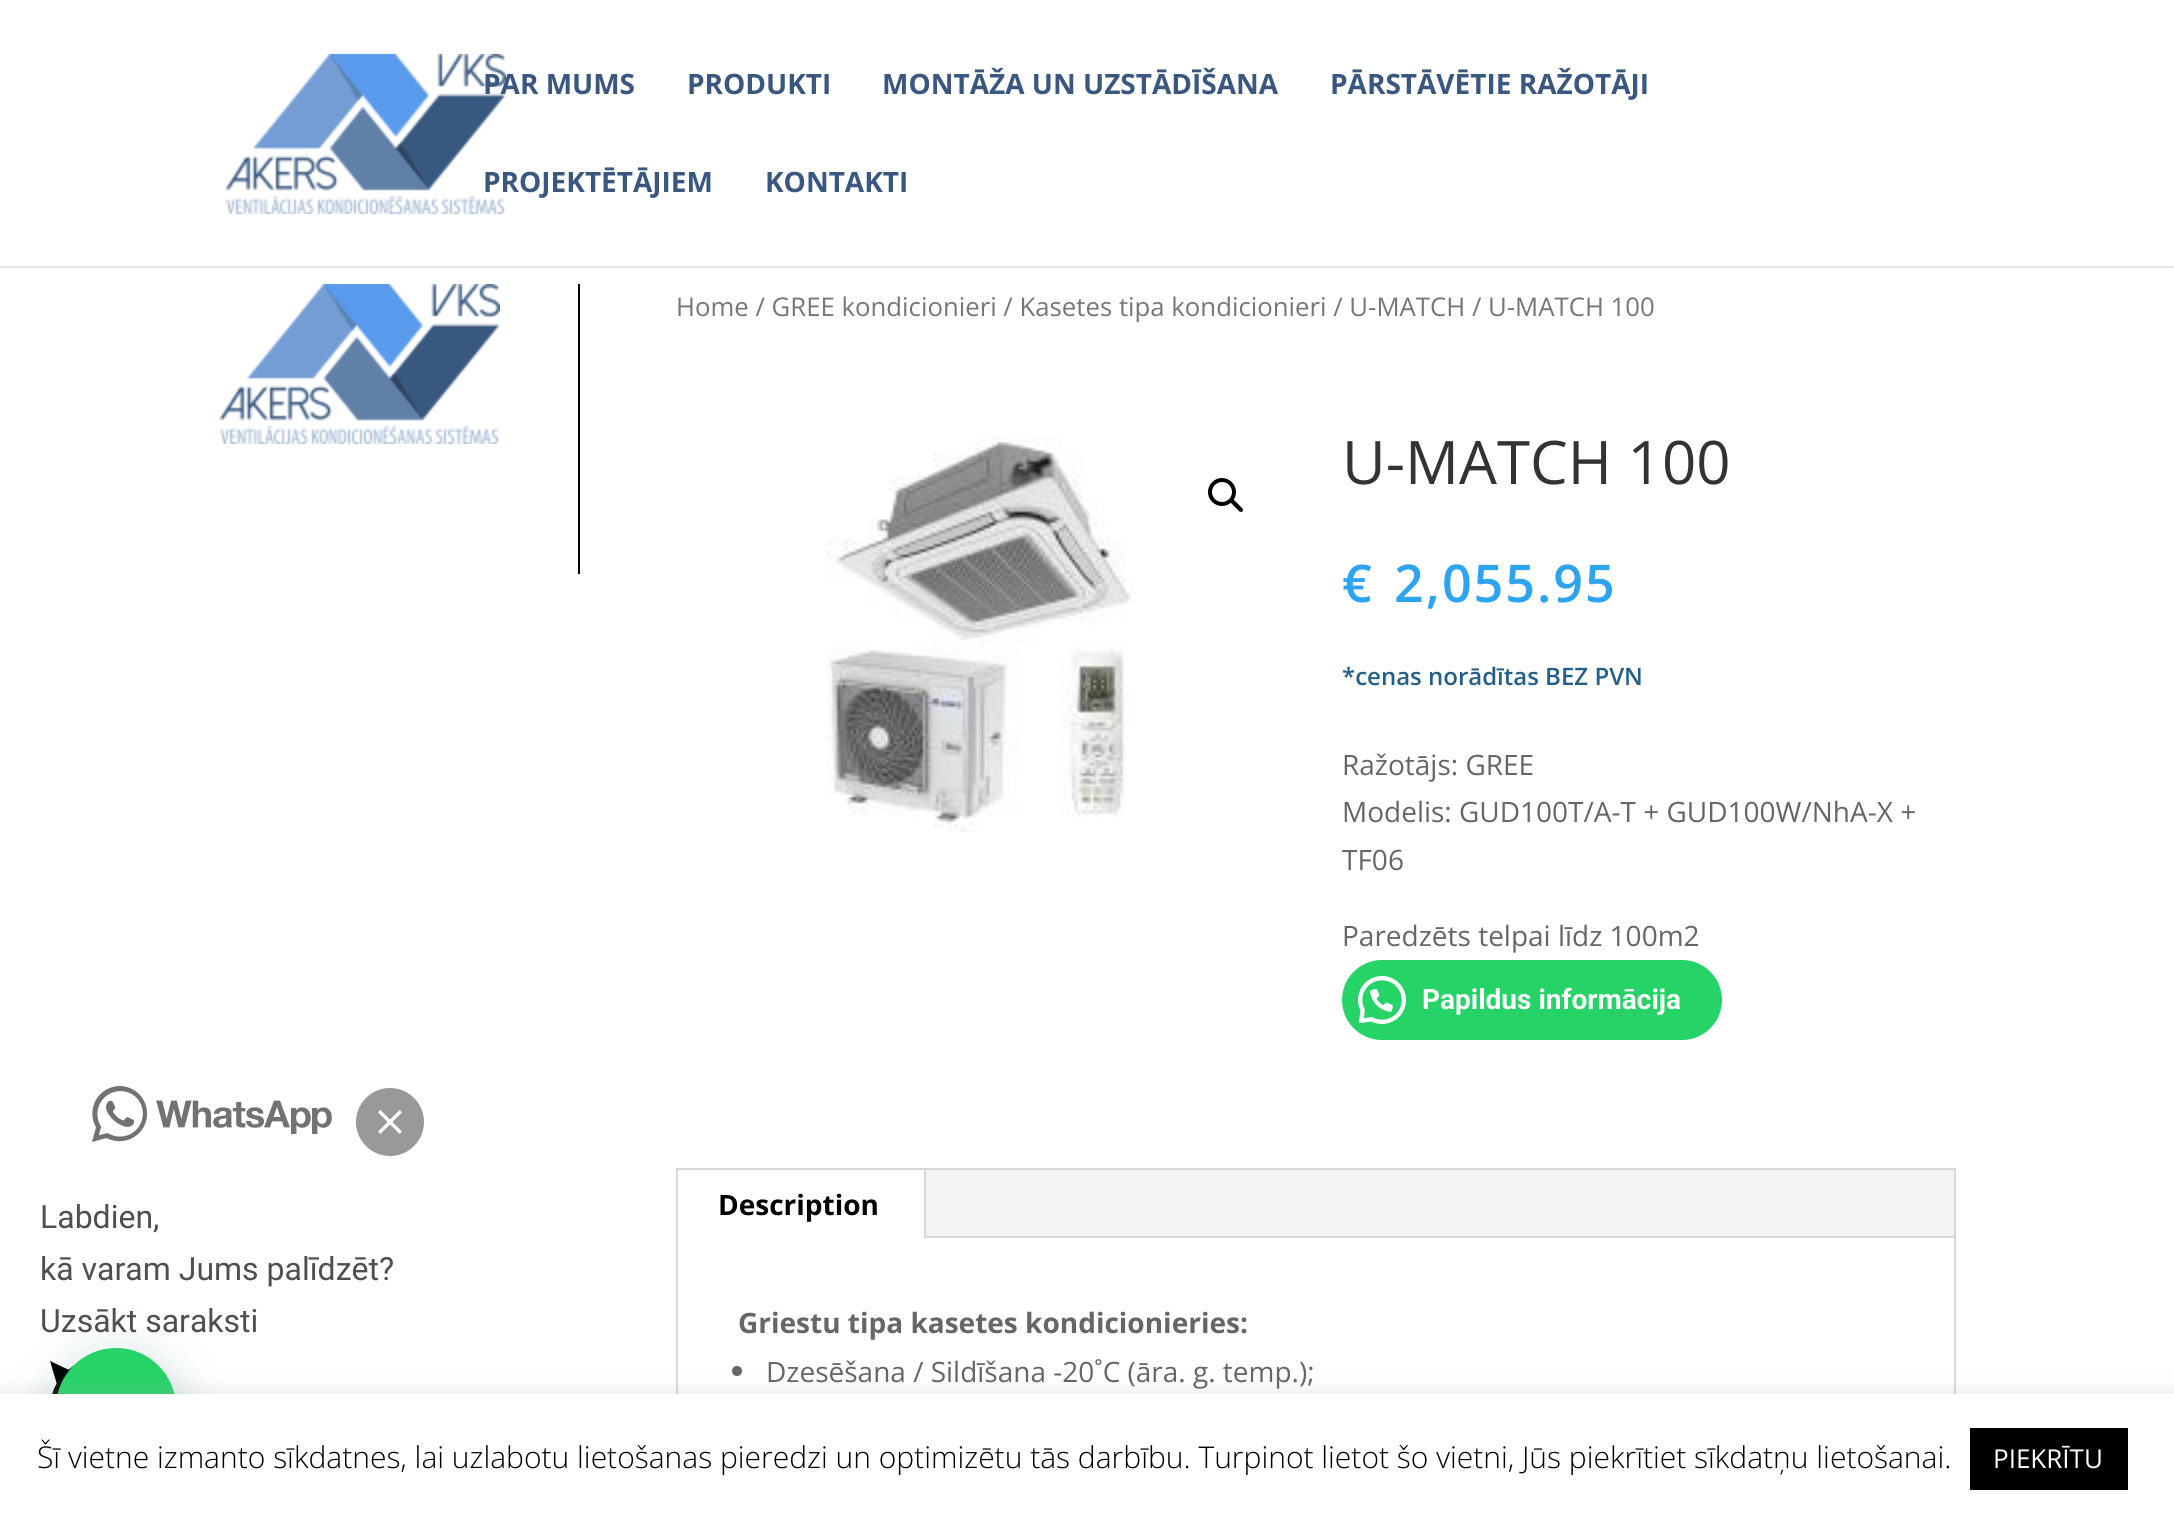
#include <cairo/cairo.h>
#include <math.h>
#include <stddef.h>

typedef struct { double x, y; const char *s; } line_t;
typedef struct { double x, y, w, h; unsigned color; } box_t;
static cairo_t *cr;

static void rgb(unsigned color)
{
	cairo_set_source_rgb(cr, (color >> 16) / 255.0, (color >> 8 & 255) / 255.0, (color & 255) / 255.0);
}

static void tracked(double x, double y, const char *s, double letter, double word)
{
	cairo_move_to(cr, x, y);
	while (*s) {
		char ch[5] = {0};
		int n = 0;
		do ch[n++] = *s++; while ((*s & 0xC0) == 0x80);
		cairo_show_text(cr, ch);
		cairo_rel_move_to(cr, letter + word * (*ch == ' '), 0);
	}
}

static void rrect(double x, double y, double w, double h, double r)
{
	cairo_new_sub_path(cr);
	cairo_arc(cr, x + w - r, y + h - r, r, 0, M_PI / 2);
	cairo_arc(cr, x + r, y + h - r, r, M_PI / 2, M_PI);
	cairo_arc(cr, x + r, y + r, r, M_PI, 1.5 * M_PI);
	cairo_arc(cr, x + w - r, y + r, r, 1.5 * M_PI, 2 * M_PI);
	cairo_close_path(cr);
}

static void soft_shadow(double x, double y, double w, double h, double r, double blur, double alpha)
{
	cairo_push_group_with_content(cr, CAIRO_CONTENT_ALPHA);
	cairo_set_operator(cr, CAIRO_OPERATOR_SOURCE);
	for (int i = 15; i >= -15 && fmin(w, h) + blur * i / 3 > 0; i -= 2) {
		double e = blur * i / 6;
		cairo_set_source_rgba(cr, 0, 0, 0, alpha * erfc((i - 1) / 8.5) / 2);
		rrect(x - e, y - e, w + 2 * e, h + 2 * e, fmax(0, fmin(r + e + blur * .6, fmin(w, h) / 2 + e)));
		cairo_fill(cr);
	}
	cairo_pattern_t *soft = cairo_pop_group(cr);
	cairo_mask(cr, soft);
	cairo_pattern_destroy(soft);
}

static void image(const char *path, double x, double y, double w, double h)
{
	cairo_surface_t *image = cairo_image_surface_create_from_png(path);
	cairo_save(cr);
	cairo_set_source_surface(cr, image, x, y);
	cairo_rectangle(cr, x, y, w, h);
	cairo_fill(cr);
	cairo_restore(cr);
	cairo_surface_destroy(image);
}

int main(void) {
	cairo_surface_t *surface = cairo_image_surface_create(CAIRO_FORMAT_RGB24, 2174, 1523);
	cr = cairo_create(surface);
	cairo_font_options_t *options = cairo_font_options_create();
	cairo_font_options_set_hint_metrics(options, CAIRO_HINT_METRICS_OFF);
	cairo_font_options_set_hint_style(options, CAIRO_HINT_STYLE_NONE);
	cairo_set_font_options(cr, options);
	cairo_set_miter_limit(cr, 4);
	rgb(0xffffff);
	cairo_paint(cr);
	image("img/1.png", 92, 1086, 240, 56);
	rgb(0x999999);
	cairo_arc(cr, 390, 1122, 34, 0, 2 * M_PI);
	cairo_fill(cr);
	image("img/2.png", 378, 1110, 24, 24);
	rgb(0x000000);
	cairo_new_path(cr);
	cairo_move_to(cr, 91, 1408);
	cairo_line_to(cr, 64, 1408);
	cairo_line_to(cr, 50, 1361);
	cairo_line_to(cr, 150, 1408);
	cairo_line_to(cr, 67, 1448);
	cairo_curve_to(cr, 50, 1455, 48, 1461, 51, 1450);
	cairo_line_to(cr, 59, 1425);
	cairo_fill(cr);
	cairo_new_path(cr);
	cairo_move_to(cr, 135, 1443);
	cairo_curve_to(cr, 120, 1459, 96, 1462, 77, 1452);
	cairo_line_to(cr, 53, 1455);
	cairo_line_to(cr, 56, 1431);
	cairo_curve_to(cr, 46, 1412, 49, 1388, 65, 1373);
	cairo_curve_to(cr, 84, 1353, 116, 1353, 135, 1373);
	cairo_curve_to(cr, 148, 1385, 153, 1403, 149, 1420);
	cairo_fill(cr);
	rgb(0x075e54);
	soft_shadow(58, 1360, 120, 120, 60, 24, 0.24);
	rgb(0x25d366);
	cairo_arc(cr, 116, 1408, 60, 0, 2 * M_PI);
	cairo_fill(cr);
	rgb(0xe6e6e6);
	cairo_rectangle(cr, 0, 266, 2174, 2);
	cairo_fill(cr);
	image("img/3.png", 225, 54, 281, 160);
	rgb(0x000000);
	cairo_rectangle(cr, 578, 284, 2, 290);
	cairo_fill(cr);
	image("img/3.png", 219, 284, 281, 160);
	image("img/4.png", 826, 435, 309, 397);
	cairo_arc(cr, 1222, 492, 12, 0, 2 * M_PI);
	cairo_set_line_width(cr, 4);
	cairo_stroke(cr);
	cairo_new_path(cr);
	cairo_move_to(cr, 1231, 500);
	cairo_curve_to(cr, 1232, 499, 1233, 499, 1234, 500);
	cairo_line_to(cr, 1242.5, 508.5);
	cairo_curve_to(cr, 1243, 509, 1243, 510.5, 1242.5, 511.5);
	cairo_curve_to(cr, 1241.5, 512, 1240.5, 512, 1239.5, 511.5);
	cairo_line_to(cr, 1231, 503);
	cairo_curve_to(cr, 1230.5, 502, 1230.5, 500.5, 1231, 500);
	cairo_close_path(cr);
	cairo_fill(cr);
	rgb(0x25d366);
	rrect(1342, 960, 380, 80, 40);
	cairo_fill(cr);
	image("img/5.png", 1358, 976, 48, 48);
	cairo_rectangle(cr, 677, 1169, 1278, 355);
	rgb(0xd9d9d9);
	cairo_set_line_width(cr, 2);
	cairo_stroke(cr);
	{
		static const box_t items[] = {
			{926, 1170, 1028, 66, 0xf4f4f4},
			{924, 1170, 2, 68, 0xd9d9d9},
			{926, 1236, 1028, 2, 0xd9d9d9},
		};
		for (size_t i = 0; i < sizeof items / sizeof *items; i++) {
			rgb(items[i].color);
			cairo_rectangle(cr, items[i].x, items[i].y, items[i].w, items[i].h);
			cairo_fill(cr);
		}
	}
	rgb(0x666666);
	cairo_arc(cr, 737, 1371, 5, 0, 2 * M_PI);
	cairo_fill(cr);
	rgb(0xacabab);
	soft_shadow(0, 1392, 2174, 130, 0, 10, 0.3);
	rgb(0xffffff);
	cairo_rectangle(cr, 0, 1394, 2174, 129);
	cairo_fill(cr);
	rgb(0x000000);
	cairo_rectangle(cr, 1970, 1428, 158, 62);
	cairo_fill(cr);
	cairo_select_font_face(cr, "Roboto", CAIRO_FONT_SLANT_NORMAL, CAIRO_FONT_WEIGHT_NORMAL);
	cairo_set_font_size(cr, 32);
	rgb(0x4f4f4f);
	{
		static const line_t items[] = {
			{40, 1228, "Labdien,"},
			{40, 1280, "kā varam Jums palīdzēt?"},
			{40, 1332, "Uzsākt saraksti"},
		};
		for (size_t i = 0; i < sizeof items / sizeof *items; i++) {
			cairo_move_to(cr, items[i].x, items[i].y);
			cairo_show_text(cr, items[i].s);
		}
	}
	cairo_select_font_face(cr, "Open Sans", CAIRO_FONT_SLANT_NORMAL, CAIRO_FONT_WEIGHT_BOLD);
	cairo_set_font_size(cr, 28);
	rgb(0x39577f);
	{
		static const line_t items[] = {
			{483, 94, "PAR MUMS"},
			{687, 94, "PRODUKTI"},
			{882, 94, "MONTĀŽA UN UZSTĀDĪŠANA"},
			{1330, 94, "PĀRSTĀVĒTIE RAŽOTĀJI"},
			{483, 192, "PROJEKTĒTĀJIEM"},
			{765, 192, "KONTAKTI"},
		};
		for (size_t i = 0; i < sizeof items / sizeof *items; i++) {
			cairo_move_to(cr, items[i].x, items[i].y);
			cairo_show_text(cr, items[i].s);
		}
	}
	cairo_select_font_face(cr, "Open Sans", CAIRO_FONT_SLANT_NORMAL, CAIRO_FONT_WEIGHT_NORMAL);
	cairo_set_font_size(cr, 25.75);
	rgb(0x767676);
	cairo_move_to(cr, 676, 316);
	cairo_show_text(cr, "Home / GREE kondicionieri / Kasetes tipa kondicionieri / U-MATCH / U-MATCH 100");
	cairo_set_font_size(cr, 60);
	rgb(0x333333);
	cairo_move_to(cr, 1342, 484);
	cairo_show_text(cr, "U-MATCH 100");
	cairo_select_font_face(cr, "Open Sans SemiBold", CAIRO_FONT_SLANT_NORMAL, CAIRO_FONT_WEIGHT_NORMAL);
	cairo_set_font_size(cr, 52);
	rgb(0x2ea3f2);
	tracked(1342, 602, "€", 2, 0);
	tracked(1394, 602, "2,055.95", 2, 0);
	cairo_set_font_size(cr, 24);
	rgb(0x235f88);
	cairo_move_to(cr, 1342, 685);
	cairo_show_text(cr, "*cenas norādītas BEZ PVN");
	cairo_select_font_face(cr, "Open Sans", CAIRO_FONT_SLANT_NORMAL, CAIRO_FONT_WEIGHT_NORMAL);
	cairo_set_font_size(cr, 28);
	rgb(0x666666);
	{
		static const line_t items[] = {
			{1342, 775, "Ražotājs: GREE"},
			{1342, 822, "Modelis: GUD100T/A-T + GUD100W/NhA-X +"},
			{1342, 870, "TF06"},
			{1342, 946, "Paredzēts telpai līdz 100m2"},
		};
		for (size_t i = 0; i < sizeof items / sizeof *items; i++) {
			cairo_move_to(cr, items[i].x, items[i].y);
			cairo_show_text(cr, items[i].s);
		}
	}
	cairo_select_font_face(cr, "Roboto", CAIRO_FONT_SLANT_NORMAL, CAIRO_FONT_WEIGHT_BOLD);
	rgb(0xffffff);
	cairo_move_to(cr, 1422, 1009);
	cairo_show_text(cr, "Papildus informācija");
	cairo_select_font_face(cr, "Open Sans", CAIRO_FONT_SLANT_NORMAL, CAIRO_FONT_WEIGHT_BOLD);
	rgb(0x000000);
	cairo_move_to(cr, 718, 1215);
	cairo_show_text(cr, "Description");
	rgb(0x666666);
	cairo_move_to(cr, 738, 1333);
	cairo_show_text(cr, "Griestu tipa kasetes kondicionieries:");
	cairo_select_font_face(cr, "Open Sans", CAIRO_FONT_SLANT_NORMAL, CAIRO_FONT_WEIGHT_NORMAL);
	cairo_move_to(cr, 766, 1382);
	cairo_show_text(cr, "Dzesēšana / Sildīšana -20˚C (āra. g. temp.);");
	cairo_select_font_face(cr, "Open Sans Light", CAIRO_FONT_SLANT_NORMAL, CAIRO_FONT_WEIGHT_NORMAL);
	cairo_set_font_size(cr, 30);
	rgb(0x000000);
	cairo_move_to(cr, 37, 1468);
	cairo_show_text(cr, "Šī vietne izmanto sīkdatnes, lai uzlabotu lietošanas pieredzi un optimizētu tās darbību. Turpinot lietot šo vietni, Jūs piekrītiet sīkdatņu lietošanai.");
	cairo_select_font_face(cr, "Open Sans", CAIRO_FONT_SLANT_NORMAL, CAIRO_FONT_WEIGHT_NORMAL);
	cairo_set_font_size(cr, 26);
	rgb(0xffffff);
	cairo_move_to(cr, 1993, 1468);
	cairo_show_text(cr, "PIEKRĪTU");
	cairo_surface_write_to_png(surface, "page.png");
	cairo_font_options_destroy(options);
	cairo_destroy(cr);
	cairo_surface_destroy(surface);
	return 0;
}
